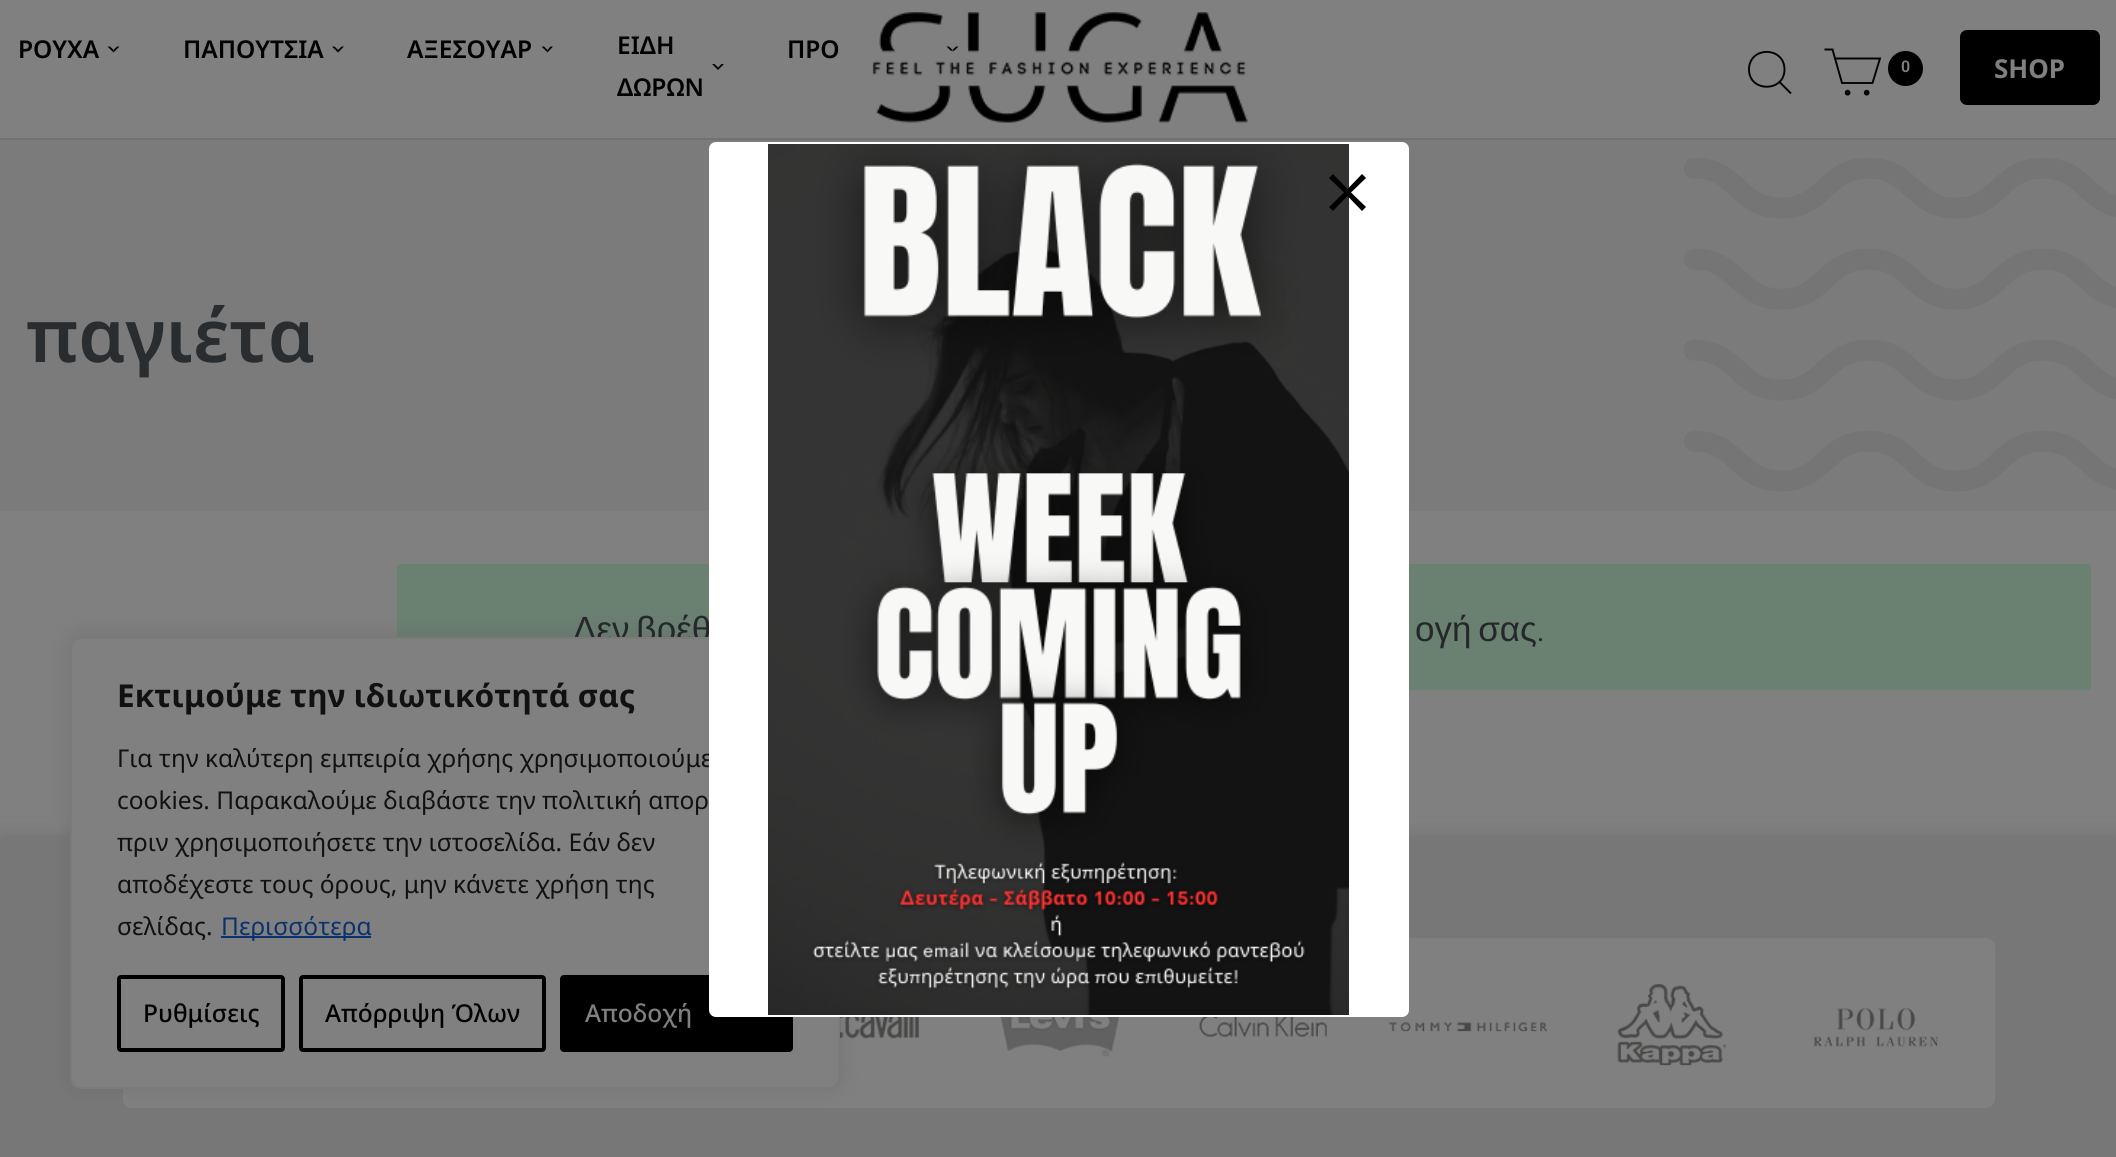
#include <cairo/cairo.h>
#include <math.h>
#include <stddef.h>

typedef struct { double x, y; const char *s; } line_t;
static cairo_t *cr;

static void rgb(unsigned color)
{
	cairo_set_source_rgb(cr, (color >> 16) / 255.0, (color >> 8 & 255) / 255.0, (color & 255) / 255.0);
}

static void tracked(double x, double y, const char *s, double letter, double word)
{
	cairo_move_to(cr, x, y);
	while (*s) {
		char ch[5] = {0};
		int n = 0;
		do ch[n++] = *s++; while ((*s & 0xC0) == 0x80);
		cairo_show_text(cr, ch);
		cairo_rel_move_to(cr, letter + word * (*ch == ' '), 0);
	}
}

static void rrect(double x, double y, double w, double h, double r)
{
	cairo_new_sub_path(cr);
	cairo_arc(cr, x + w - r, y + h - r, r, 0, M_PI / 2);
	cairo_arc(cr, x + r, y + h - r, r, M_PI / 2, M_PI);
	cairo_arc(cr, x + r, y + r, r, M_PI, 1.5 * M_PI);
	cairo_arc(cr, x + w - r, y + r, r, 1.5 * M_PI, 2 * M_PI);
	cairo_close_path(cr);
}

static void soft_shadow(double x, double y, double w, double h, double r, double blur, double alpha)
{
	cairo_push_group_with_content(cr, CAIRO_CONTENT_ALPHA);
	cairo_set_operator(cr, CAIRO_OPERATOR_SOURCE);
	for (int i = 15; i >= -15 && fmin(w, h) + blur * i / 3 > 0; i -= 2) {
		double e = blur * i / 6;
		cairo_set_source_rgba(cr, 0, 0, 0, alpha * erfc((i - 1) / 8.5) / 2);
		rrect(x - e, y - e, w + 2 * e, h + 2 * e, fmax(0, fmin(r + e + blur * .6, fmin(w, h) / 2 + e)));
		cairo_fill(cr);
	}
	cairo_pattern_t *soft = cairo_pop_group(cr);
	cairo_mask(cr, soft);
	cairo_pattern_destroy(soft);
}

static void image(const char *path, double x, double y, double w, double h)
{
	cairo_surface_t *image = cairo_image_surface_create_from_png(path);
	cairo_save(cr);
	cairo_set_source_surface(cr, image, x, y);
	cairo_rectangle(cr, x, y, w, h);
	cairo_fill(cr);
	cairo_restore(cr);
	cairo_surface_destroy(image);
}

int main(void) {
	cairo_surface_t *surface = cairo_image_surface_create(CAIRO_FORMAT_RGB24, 2116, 1157);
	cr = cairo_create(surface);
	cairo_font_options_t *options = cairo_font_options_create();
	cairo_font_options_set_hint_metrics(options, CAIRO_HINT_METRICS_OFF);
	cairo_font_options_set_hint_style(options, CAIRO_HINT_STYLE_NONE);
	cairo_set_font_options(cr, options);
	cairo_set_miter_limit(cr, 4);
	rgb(0x808080);
	cairo_paint(cr);
	rgb(0x717171);
	cairo_rectangle(cr, 0, 138, 2116, 2);
	cairo_fill(cr);
	rgb(0x000000);
	cairo_new_path(cr);
	cairo_move_to(cr, 119.5, 46.5);
	cairo_line_to(cr, 113.5, 52.5);
	cairo_line_to(cr, 113.5, 50);
	cairo_line_to(cr, 117, 46.5);
	cairo_close_path(cr);
	cairo_fill(cr);
	cairo_new_path(cr);
	cairo_move_to(cr, 113.5, 52.5);
	cairo_line_to(cr, 107.5, 46.5);
	cairo_line_to(cr, 110, 46.5);
	cairo_line_to(cr, 113.5, 50);
	cairo_close_path(cr);
	cairo_fill(cr);
	cairo_new_path(cr);
	cairo_move_to(cr, 344, 46.5);
	cairo_line_to(cr, 338, 52.5);
	cairo_line_to(cr, 338, 50);
	cairo_line_to(cr, 341.5, 46.5);
	cairo_close_path(cr);
	cairo_move_to(cr, 338, 52.5);
	cairo_line_to(cr, 332, 46.5);
	cairo_line_to(cr, 334.5, 46.5);
	cairo_line_to(cr, 338, 50);
	cairo_close_path(cr);
	cairo_fill(cr);
	cairo_new_path(cr);
	cairo_move_to(cr, 553, 46.5);
	cairo_line_to(cr, 547.5, 52.5);
	cairo_line_to(cr, 547.5, 50);
	cairo_line_to(cr, 550.5, 46.5);
	cairo_close_path(cr);
	cairo_fill(cr);
	cairo_new_path(cr);
	cairo_move_to(cr, 547.5, 52.5);
	cairo_line_to(cr, 541.5, 46.5);
	cairo_line_to(cr, 544, 46.5);
	cairo_line_to(cr, 547.5, 50);
	cairo_close_path(cr);
	cairo_fill(cr);
	cairo_new_path(cr);
	cairo_move_to(cr, 724, 64);
	cairo_line_to(cr, 718, 70);
	cairo_line_to(cr, 718, 67.5);
	cairo_line_to(cr, 721.5, 64);
	cairo_close_path(cr);
	cairo_move_to(cr, 718, 70);
	cairo_line_to(cr, 712, 64);
	cairo_line_to(cr, 714.5, 64);
	cairo_line_to(cr, 718, 67.5);
	cairo_close_path(cr);
	cairo_fill(cr);
	cairo_new_path(cr);
	cairo_move_to(cr, 958.5, 46.5);
	cairo_line_to(cr, 952.5, 52.5);
	cairo_line_to(cr, 952.5, 50);
	cairo_line_to(cr, 956, 46.5);
	cairo_close_path(cr);
	cairo_fill(cr);
	cairo_new_path(cr);
	cairo_move_to(cr, 952.5, 52.5);
	cairo_line_to(cr, 946.5, 46.5);
	cairo_line_to(cr, 949, 46.5);
	cairo_line_to(cr, 952.5, 50);
	cairo_close_path(cr);
	cairo_fill(cr);
	image("img/1.png", 850, 12, 398, 111);
	cairo_new_path(cr);
	cairo_move_to(cr, 1784.5, 69.5);
	cairo_curve_to(cr, 1784.5, 92.5, 1749, 92.5, 1749, 69.5);
	cairo_curve_to(cr, 1749, 46, 1784.5, 46, 1784.5, 69.5);
	cairo_close_path(cr);
	cairo_move_to(cr, 1791, 93.5);
	cairo_line_to(cr, 1779.5, 82);
	cairo_set_line_width(cr, 1.9);
	cairo_stroke(cr);
	cairo_new_path(cr);
	cairo_move_to(cr, 1835, 58.5);
	cairo_line_to(cr, 1880, 58.5);
	cairo_line_to(cr, 1872.5, 83);
	cairo_line_to(cr, 1842, 83);
	cairo_line_to(cr, 1832.5, 49.5);
	cairo_line_to(cr, 1824.5, 49.5);
	cairo_stroke(cr);
	rgb(0x111315);
	cairo_arc(cr, 1847.6, 92.7, 1.9, 0, 2 * M_PI);
	cairo_fill_preserve(cr);
	rgb(0x000000);
	cairo_stroke(cr);
	rgb(0x111315);
	cairo_arc(cr, 1866.7, 92.7, 1.9, 0, 2 * M_PI);
	cairo_fill_preserve(cr);
	rgb(0x000000);
	cairo_stroke(cr);
	cairo_arc(cr, 1905.5, 68.5, 17.5, 0, 2 * M_PI);
	cairo_fill(cr);
	rrect(1960, 30, 140, 75, 7);
	cairo_fill(cr);
	rgb(0x7b7b7b);
	cairo_rectangle(cr, 0, 140, 2116, 371);
	cairo_fill(cr);
	image("img/2.png", 1684, 158, 432, 334);
	rgb(0x6a8071);
	rrect(397, 564, 1694, 126, 4);
	cairo_fill(cr);
	rgb(0x5c5c5c);
	soft_shadow(0, 838, 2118, 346, 0, 9, 0.5);
	rgb(0x777777);
	cairo_rectangle(cr, 0, 838, 2116, 319);
	cairo_fill(cr);
	rgb(0x808080);
	rrect(123, 938, 1872, 170, 9);
	cairo_fill(cr);
	image("img/3.png", 840, 1017, 79, 22);
	image("img/4.png", 1000, 1017, 120, 40);
	image("img/5.png", 1199, 1017, 128, 20);
	image("img/6.png", 1389, 1022, 158, 10);
	image("img/7.png", 1617, 984, 109, 82);
	image("img/8.png", 1814, 1008, 124, 39);
	rgb(0x565656);
	soft_shadow(70, 635, 770, 452, 11, 9, 0.3);
	cairo_select_font_face(cr, "Noto Sans SemiBold", CAIRO_FONT_SLANT_NORMAL, CAIRO_FONT_WEIGHT_NORMAL);
	cairo_set_font_size(cr, 24.5);
	rgb(0x000000);
	{
		static const line_t items[] = {
			{18, 58, "ΡΟΥΧΑ"},
			{183, 58, "ΠΑΠΟΥΤΣΙΑ"},
			{407, 58, "ΑΞΕΣΟΥΑΡ"},
			{617, 54, "ΕΙΔΗ"},
			{617, 96, "ΔΩΡΩΝ"},
			{787, 58, "ΠΡΟ"},
		};
		for (size_t i = 0; i < sizeof items / sizeof *items; i++) {
			cairo_move_to(cr, items[i].x, items[i].y);
			cairo_show_text(cr, items[i].s);
		}
	}
	cairo_select_font_face(cr, "Roboto SemiBold", CAIRO_FONT_SLANT_NORMAL, CAIRO_FONT_WEIGHT_NORMAL);
	cairo_set_font_size(cr, 16);
	rgb(0x808080);
	cairo_move_to(cr, 1901, 72);
	cairo_show_text(cr, "0");
	cairo_select_font_face(cr, "Noto Sans", CAIRO_FONT_SLANT_NORMAL, CAIRO_FONT_WEIGHT_BOLD);
	cairo_set_font_size(cr, 26);
	cairo_move_to(cr, 1994, 78);
	cairo_show_text(cr, "SHOP");
	cairo_select_font_face(cr, "Noto Sans SemiBold", CAIRO_FONT_SLANT_NORMAL, CAIRO_FONT_WEIGHT_NORMAL);
	cairo_set_font_size(cr, 73.5);
	rgb(0x2a2d30);
	cairo_move_to(cr, 26, 362);
	cairo_show_text(cr, "παγιέτα");
	cairo_select_font_face(cr, "Liberation Sans", CAIRO_FONT_SLANT_NORMAL, CAIRO_FONT_WEIGHT_NORMAL);
	cairo_set_font_size(cr, 35);
	rgb(0x24282b);
	tracked(573, 641, "Δεν βρέθ", 0, -3);
	tracked(1415, 641, "ογή σας", 0, -3);
	cairo_select_font_face(cr, "Lato Light", CAIRO_FONT_SLANT_NORMAL, CAIRO_FONT_WEIGHT_NORMAL);
	cairo_move_to(cr, 1537, 641);
	cairo_show_text(cr, ".");
	rgb(0x808080);
	rrect(71, 638, 768, 450, 10);
	cairo_fill_preserve(cr);
	rgb(0x7a7a7a);
	cairo_set_line_width(cr, 2);
	cairo_stroke(cr);
	cairo_select_font_face(cr, "Noto Sans", CAIRO_FONT_SLANT_NORMAL, CAIRO_FONT_WEIGHT_BOLD);
	cairo_set_font_size(cr, 31.5);
	rgb(0x111111);
	cairo_move_to(cr, 117, 707);
	cairo_show_text(cr, "Εκτιμούμε την ιδιωτικότητά σας");
	cairo_select_font_face(cr, "Noto Sans", CAIRO_FONT_SLANT_NORMAL, CAIRO_FONT_WEIGHT_NORMAL);
	cairo_set_font_size(cr, 24.5);
	{
		static const line_t items[] = {
			{117, 767, "Για την καλύτερη εμπειρία χρήσης χρησιμοποιούμε"},
			{117, 809, "cookies. Παρακαλούμε διαβάστε την πολιτική απορ"},
			{117, 851, "πριν χρησιμοποιήσετε την ιστοσελίδα. Εάν δεν"},
			{117, 893, "αποδέχεστε τους όρους, μην κάνετε χρήση της"},
			{117, 935, "σελίδας."},
		};
		for (size_t i = 0; i < sizeof items / sizeof *items; i++) {
			cairo_move_to(cr, items[i].x, items[i].y);
			cairo_show_text(cr, items[i].s);
		}
	}
	rgb(0x0c326e);
	cairo_rectangle(cr, 221, 936, 150, 2);
	cairo_fill(cr);
	cairo_move_to(cr, 221, 935);
	cairo_show_text(cr, "Περισσότερα");
	rrect(119, 977, 164, 73, 2);
	rgb(0x000000);
	cairo_set_line_width(cr, 4);
	cairo_stroke(cr);
	cairo_select_font_face(cr, "Noto Sans Medium", CAIRO_FONT_SLANT_NORMAL, CAIRO_FONT_WEIGHT_NORMAL);
	cairo_move_to(cr, 143, 1022);
	cairo_show_text(cr, "Ρυθμίσεις");
	rrect(301, 977, 243, 73, 2);
	cairo_stroke(cr);
	cairo_move_to(cr, 325, 1022);
	cairo_show_text(cr, "Απόρριψη Όλων");
	rrect(562, 977, 229, 73, 2);
	cairo_fill_preserve(cr);
	cairo_stroke(cr);
	rgb(0x808080);
	cairo_move_to(cr, 585, 1022);
	cairo_show_text(cr, "Αποδοχή");
	rgb(0xffffff);
	rrect(710, 143, 698, 873, 6);
	cairo_fill_preserve(cr);
	cairo_set_line_width(cr, 2);
	cairo_stroke(cr);
	image("img/9.png", 768, 144, 581, 871);
	rgb(0x000000);
	cairo_new_path(cr);
	cairo_move_to(cr, 1366, 178);
	cairo_line_to(cr, 1362, 174);
	cairo_line_to(cr, 1347.5, 189);
	cairo_line_to(cr, 1333, 174);
	cairo_line_to(cr, 1329, 178);
	cairo_line_to(cr, 1344, 192.5);
	cairo_line_to(cr, 1329, 207);
	cairo_line_to(cr, 1333, 211);
	cairo_line_to(cr, 1347.5, 196);
	cairo_line_to(cr, 1362, 211);
	cairo_line_to(cr, 1366, 207);
	cairo_line_to(cr, 1351, 192.5);
	cairo_close_path(cr);
	cairo_fill(cr);
	cairo_surface_write_to_png(surface, "page.png");
	cairo_font_options_destroy(options);
	cairo_destroy(cr);
	cairo_surface_destroy(surface);
	return 0;
}
